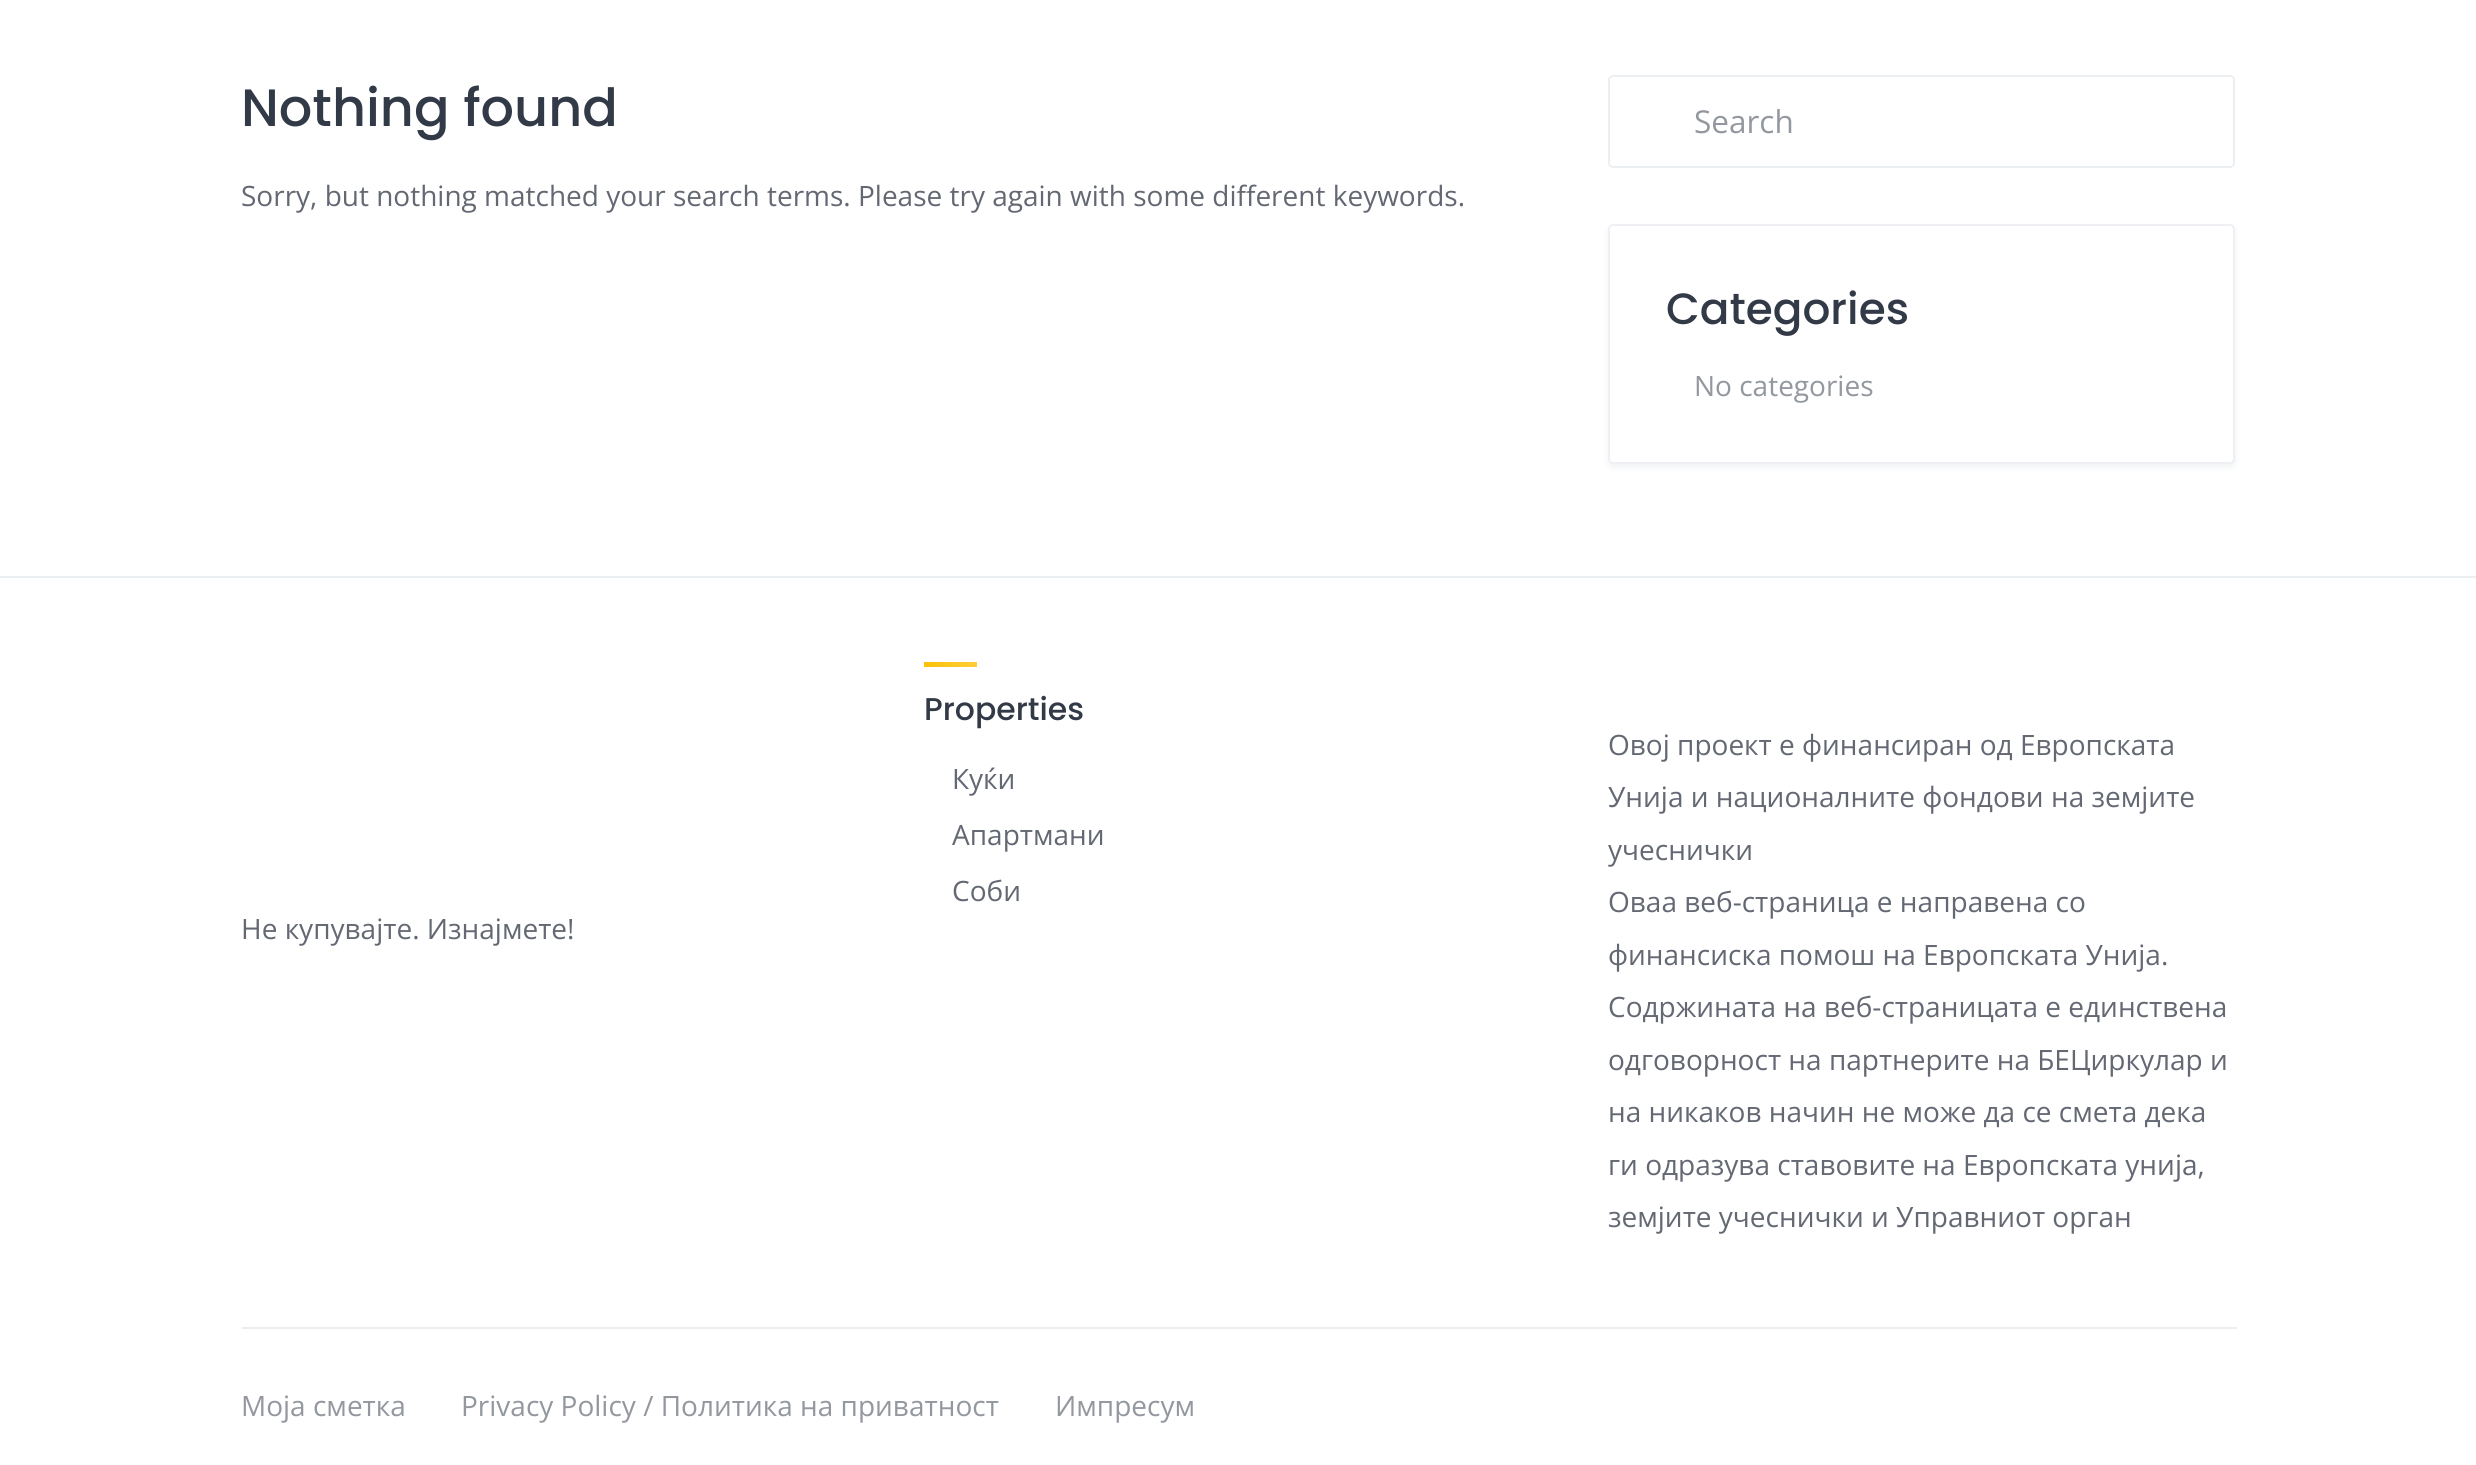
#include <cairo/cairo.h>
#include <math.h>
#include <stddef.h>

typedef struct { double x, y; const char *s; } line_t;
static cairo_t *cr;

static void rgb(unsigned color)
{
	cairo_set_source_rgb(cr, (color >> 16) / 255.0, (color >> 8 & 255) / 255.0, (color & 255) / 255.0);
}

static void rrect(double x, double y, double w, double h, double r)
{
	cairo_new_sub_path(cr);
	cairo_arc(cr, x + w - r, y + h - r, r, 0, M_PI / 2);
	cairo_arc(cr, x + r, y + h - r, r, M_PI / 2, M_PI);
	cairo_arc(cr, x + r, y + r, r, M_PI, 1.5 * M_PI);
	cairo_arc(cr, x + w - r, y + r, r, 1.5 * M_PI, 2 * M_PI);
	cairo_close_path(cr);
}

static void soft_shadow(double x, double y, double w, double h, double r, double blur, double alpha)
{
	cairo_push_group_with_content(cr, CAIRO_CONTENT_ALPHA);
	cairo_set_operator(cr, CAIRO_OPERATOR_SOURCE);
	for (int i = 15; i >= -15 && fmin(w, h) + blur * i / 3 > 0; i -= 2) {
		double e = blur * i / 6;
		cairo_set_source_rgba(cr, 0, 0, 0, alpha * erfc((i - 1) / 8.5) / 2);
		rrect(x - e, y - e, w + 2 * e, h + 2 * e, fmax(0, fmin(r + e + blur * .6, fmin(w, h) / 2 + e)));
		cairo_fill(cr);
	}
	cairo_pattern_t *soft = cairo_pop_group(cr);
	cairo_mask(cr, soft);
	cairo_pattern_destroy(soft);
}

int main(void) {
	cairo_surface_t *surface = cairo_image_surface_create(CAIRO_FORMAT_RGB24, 2476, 1465);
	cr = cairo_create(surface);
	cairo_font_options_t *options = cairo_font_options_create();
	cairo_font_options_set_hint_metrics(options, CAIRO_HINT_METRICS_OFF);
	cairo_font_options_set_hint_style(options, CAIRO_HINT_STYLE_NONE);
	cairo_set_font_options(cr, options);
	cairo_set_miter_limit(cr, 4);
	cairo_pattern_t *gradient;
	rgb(0xffffff);
	cairo_paint(cr);
	rrect(1609, 76, 625, 91, 4);
	rgb(0xeceff2);
	cairo_stroke(cr);
	rgb(0x072456);
	soft_shadow(1608, 228, 627, 239, 5, 3.5, 0.07);
	rgb(0xffffff);
	rrect(1608, 224, 627, 240, 5);
	cairo_fill(cr);
	rrect(1609, 225, 625, 238, 4);
	cairo_set_source_rgba(cr, 0.027, 0.141, 0.337, 0.07);
	cairo_stroke(cr);
	rgb(0xeceff2);
	cairo_rectangle(cr, 0, 576, 2476, 2);
	cairo_fill(cr);
	cairo_rectangle(cr, 242, 1327, 1995, 2);
	cairo_fill(cr);
	gradient = cairo_pattern_create_linear(924, 664, 977, 664);
	cairo_pattern_add_color_stop_rgba(gradient, 0, 1, 0.757, 0.027, 1);
	cairo_pattern_add_color_stop_rgba(gradient, 1, 1, 0.804, 0.224, 1);
	cairo_set_source(cr, gradient);
	cairo_pattern_destroy(gradient);
	cairo_rectangle(cr, 924, 662, 53, 5);
	cairo_fill(cr);
	cairo_select_font_face(cr, "Poppins Medium", CAIRO_FONT_SLANT_NORMAL, CAIRO_FONT_WEIGHT_NORMAL);
	cairo_set_font_size(cr, 52.5);
	rgb(0x333a47);
	cairo_move_to(cr, 241, 126);
	cairo_show_text(cr, "Nothing found");
	cairo_select_font_face(cr, "Open Sans", CAIRO_FONT_SLANT_NORMAL, CAIRO_FONT_WEIGHT_NORMAL);
	cairo_set_font_size(cr, 28);
	rgb(0x636873);
	cairo_move_to(cr, 241, 206);
	cairo_show_text(cr, "Sorry, but nothing matched your search terms. Please try again with some different keywords.");
	cairo_set_font_size(cr, 31.5);
	rgb(0x93979e);
	cairo_move_to(cr, 1694, 133);
	cairo_show_text(cr, "Search");
	cairo_select_font_face(cr, "Poppins Medium", CAIRO_FONT_SLANT_NORMAL, CAIRO_FONT_WEIGHT_NORMAL);
	cairo_set_font_size(cr, 43.75);
	rgb(0x333a47);
	cairo_move_to(cr, 1666, 324);
	cairo_show_text(cr, "Categories");
	cairo_select_font_face(cr, "Open Sans", CAIRO_FONT_SLANT_NORMAL, CAIRO_FONT_WEIGHT_NORMAL);
	cairo_set_font_size(cr, 28);
	rgb(0x93979e);
	cairo_move_to(cr, 1694, 396);
	cairo_show_text(cr, "No categories");
	rgb(0x636873);
	cairo_move_to(cr, 241, 939);
	cairo_show_text(cr, "Не купувајте. Изнајмете!");
	cairo_select_font_face(cr, "Poppins Medium", CAIRO_FONT_SLANT_NORMAL, CAIRO_FONT_WEIGHT_NORMAL);
	cairo_set_font_size(cr, 31.5);
	rgb(0x333a47);
	cairo_move_to(cr, 924, 720);
	cairo_show_text(cr, "Properties");
	cairo_select_font_face(cr, "Open Sans", CAIRO_FONT_SLANT_NORMAL, CAIRO_FONT_WEIGHT_NORMAL);
	cairo_set_font_size(cr, 28);
	rgb(0x636873);
	{
		static const line_t items[] = {
			{952, 789, "Куќи"},
			{952, 845, "Апартмани"},
			{952, 901, "Соби"},
			{1608, 755, "Овој проект е финансиран од Европската"},
			{1608, 807, "Унија и националните фондови на земјите"},
			{1608, 860, "учеснички"},
			{1608, 912, "Оваа веб-страница е направена со"},
			{1608, 965, "финансиска помош на Европската Унија."},
			{1608, 1017, "Содржината на веб-страницата е единствена"},
			{1608, 1070, "одговорност на партнерите на БЕЦиркулар и"},
			{1608, 1122, "на никаков начин не може да се смета дека"},
			{1608, 1175, "ги одразува ставовите на Европската унија,"},
			{1608, 1227, "земјите учеснички и Управниот орган"},
		};
		for (size_t i = 0; i < sizeof items / sizeof *items; i++) {
			cairo_move_to(cr, items[i].x, items[i].y);
			cairo_show_text(cr, items[i].s);
		}
	}
	rgb(0x93979e);
	{
		static const line_t items[] = {
			{241, 1416, "Моја сметка"},
			{461, 1416, "Privacy Policy / Политика на приватност"},
			{1055, 1416, "Импресум"},
		};
		for (size_t i = 0; i < sizeof items / sizeof *items; i++) {
			cairo_move_to(cr, items[i].x, items[i].y);
			cairo_show_text(cr, items[i].s);
		}
	}
	cairo_surface_write_to_png(surface, "page.png");
	cairo_font_options_destroy(options);
	cairo_destroy(cr);
	cairo_surface_destroy(surface);
	return 0;
}
